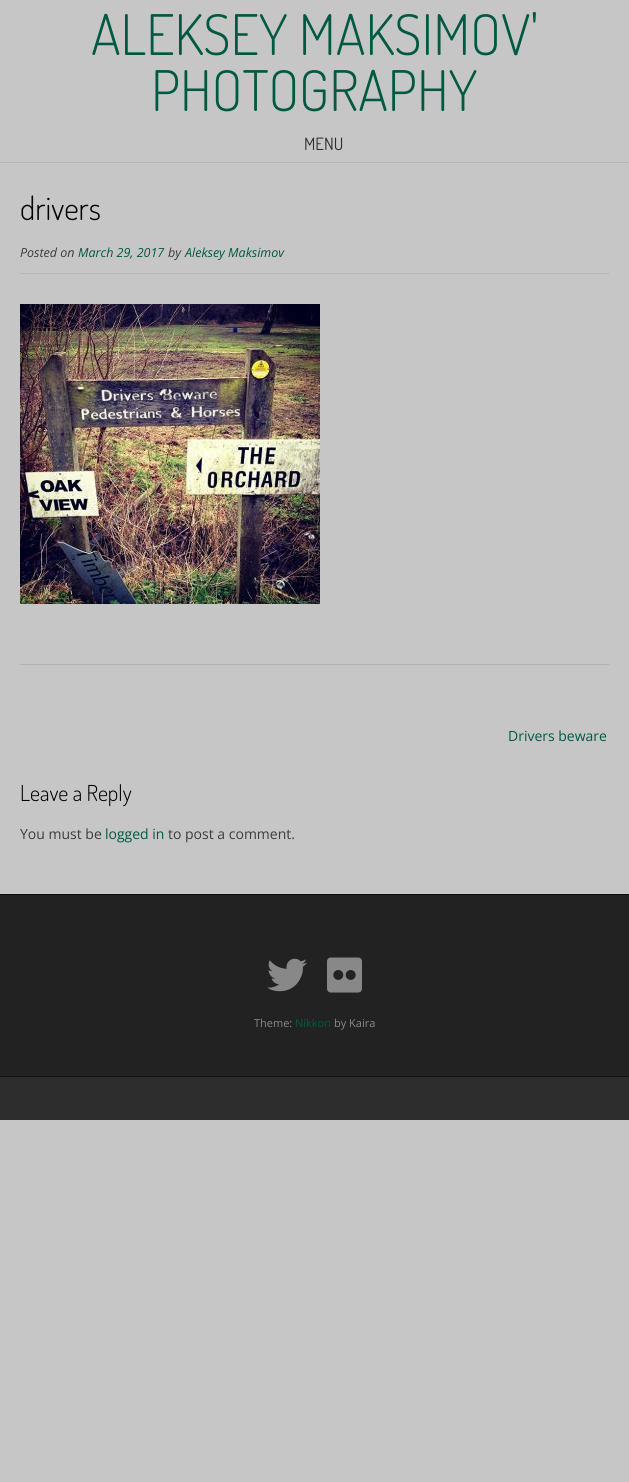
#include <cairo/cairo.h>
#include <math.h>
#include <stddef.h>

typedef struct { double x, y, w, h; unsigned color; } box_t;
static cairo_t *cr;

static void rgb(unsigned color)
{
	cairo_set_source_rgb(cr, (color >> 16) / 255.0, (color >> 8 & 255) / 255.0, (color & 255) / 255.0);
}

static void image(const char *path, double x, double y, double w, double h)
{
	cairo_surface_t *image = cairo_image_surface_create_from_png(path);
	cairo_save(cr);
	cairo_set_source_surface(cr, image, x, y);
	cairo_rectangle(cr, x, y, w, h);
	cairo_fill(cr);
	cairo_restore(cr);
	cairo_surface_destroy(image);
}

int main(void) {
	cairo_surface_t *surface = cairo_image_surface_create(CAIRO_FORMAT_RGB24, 629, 1482);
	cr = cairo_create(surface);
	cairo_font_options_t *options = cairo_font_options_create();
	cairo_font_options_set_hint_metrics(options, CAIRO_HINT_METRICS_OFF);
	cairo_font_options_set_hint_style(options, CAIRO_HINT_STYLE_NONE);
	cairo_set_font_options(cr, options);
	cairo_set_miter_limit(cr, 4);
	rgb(0xc6c6c6);
	cairo_paint(cr);
	{
		static const box_t items[] = {
			{0, 162, 629, 1, 0xb6b6b6},
			{20, 664, 589, 1, 0xb2b2b2},
			{20, 273, 589, 1, 0xb6b6b6},
		};
		for (size_t i = 0; i < sizeof items / sizeof *items; i++) {
			rgb(items[i].color);
			cairo_rectangle(cr, items[i].x, items[i].y, items[i].w, items[i].h);
			cairo_fill(cr);
		}
	}
	image("img/1.png", 20, 304, 300, 300);
	rgb(0x222222);
	cairo_rectangle(cr, 0, 895, 629, 181);
	cairo_fill(cr);
	rgb(0x0c0c0c);
	cairo_rectangle(cr, 0, 894, 629, 1);
	cairo_fill(cr);
	image("img/2.png", 267, 958, 40, 34);
	image("img/3.png", 327, 957, 35, 36);
	rgb(0x2d2d2d);
	cairo_rectangle(cr, 0, 1077, 629, 43);
	cairo_fill(cr);
	rgb(0x121212);
	cairo_rectangle(cr, 0, 1076, 629, 1);
	cairo_fill(cr);
	cairo_select_font_face(cr, "Dosis Light", CAIRO_FONT_SLANT_NORMAL, CAIRO_FONT_WEIGHT_NORMAL);
	cairo_set_font_size(cr, 56);
	rgb(0x005942);
	cairo_move_to(cr, 91, 55);
	cairo_show_text(cr, "ALEKSEY MAKSIMOV'");
	cairo_move_to(cr, 151, 111);
	cairo_show_text(cr, "PHOTOGRAPHY");
	cairo_select_font_face(cr, "Dosis", CAIRO_FONT_SLANT_NORMAL, CAIRO_FONT_WEIGHT_NORMAL);
	cairo_set_font_size(cr, 17);
	rgb(0x2d2d2d);
	cairo_move_to(cr, 304, 150);
	cairo_show_text(cr, "MENU");
	cairo_select_font_face(cr, "Dosis Light", CAIRO_FONT_SLANT_NORMAL, CAIRO_FONT_WEIGHT_NORMAL);
	cairo_set_font_size(cr, 32);
	rgb(0x000000);
	cairo_move_to(cr, 20, 220);
	cairo_show_text(cr, "drivers");
	cairo_select_font_face(cr, "Open Sans", CAIRO_FONT_SLANT_ITALIC, CAIRO_FONT_WEIGHT_NORMAL);
	cairo_set_font_size(cr, 12.5);
	rgb(0x3c3c3c);
	cairo_move_to(cr, 20, 257);
	cairo_show_text(cr, "Posted on");
	rgb(0x005942);
	cairo_move_to(cr, 78, 257);
	cairo_show_text(cr, "March 29, 2017");
	rgb(0x3c3c3c);
	cairo_move_to(cr, 168, 257);
	cairo_show_text(cr, "by");
	rgb(0x005942);
	cairo_move_to(cr, 185, 257);
	cairo_show_text(cr, "Aleksey Maksimov");
	cairo_select_font_face(cr, "Open Sans", CAIRO_FONT_SLANT_NORMAL, CAIRO_FONT_WEIGHT_NORMAL);
	cairo_set_font_size(cr, 14);
	cairo_move_to(cr, 508, 741);
	cairo_show_text(cr, "Drivers beware");
	cairo_select_font_face(cr, "Dosis Light", CAIRO_FONT_SLANT_NORMAL, CAIRO_FONT_WEIGHT_NORMAL);
	cairo_set_font_size(cr, 22);
	rgb(0x000000);
	cairo_move_to(cr, 20, 801);
	cairo_show_text(cr, "Leave a Reply");
	cairo_select_font_face(cr, "Open Sans", CAIRO_FONT_SLANT_NORMAL, CAIRO_FONT_WEIGHT_NORMAL);
	cairo_set_font_size(cr, 14);
	rgb(0x3c3c3c);
	cairo_move_to(cr, 20, 839);
	cairo_show_text(cr, "You must be");
	rgb(0x005942);
	cairo_move_to(cr, 105, 839);
	cairo_show_text(cr, "logged in");
	rgb(0x3c3c3c);
	cairo_move_to(cr, 168, 839);
	cairo_show_text(cr, "to post a comment.");
	cairo_set_font_size(cr, 11);
	rgb(0x888888);
	cairo_move_to(cr, 254, 1027);
	cairo_show_text(cr, "Theme:");
	rgb(0x005942);
	cairo_move_to(cr, 295, 1027);
	cairo_show_text(cr, "Nikkon");
	rgb(0x888888);
	cairo_move_to(cr, 334, 1027);
	cairo_show_text(cr, "by Kaira");
	cairo_surface_write_to_png(surface, "page.png");
	cairo_font_options_destroy(options);
	cairo_destroy(cr);
	cairo_surface_destroy(surface);
	return 0;
}
